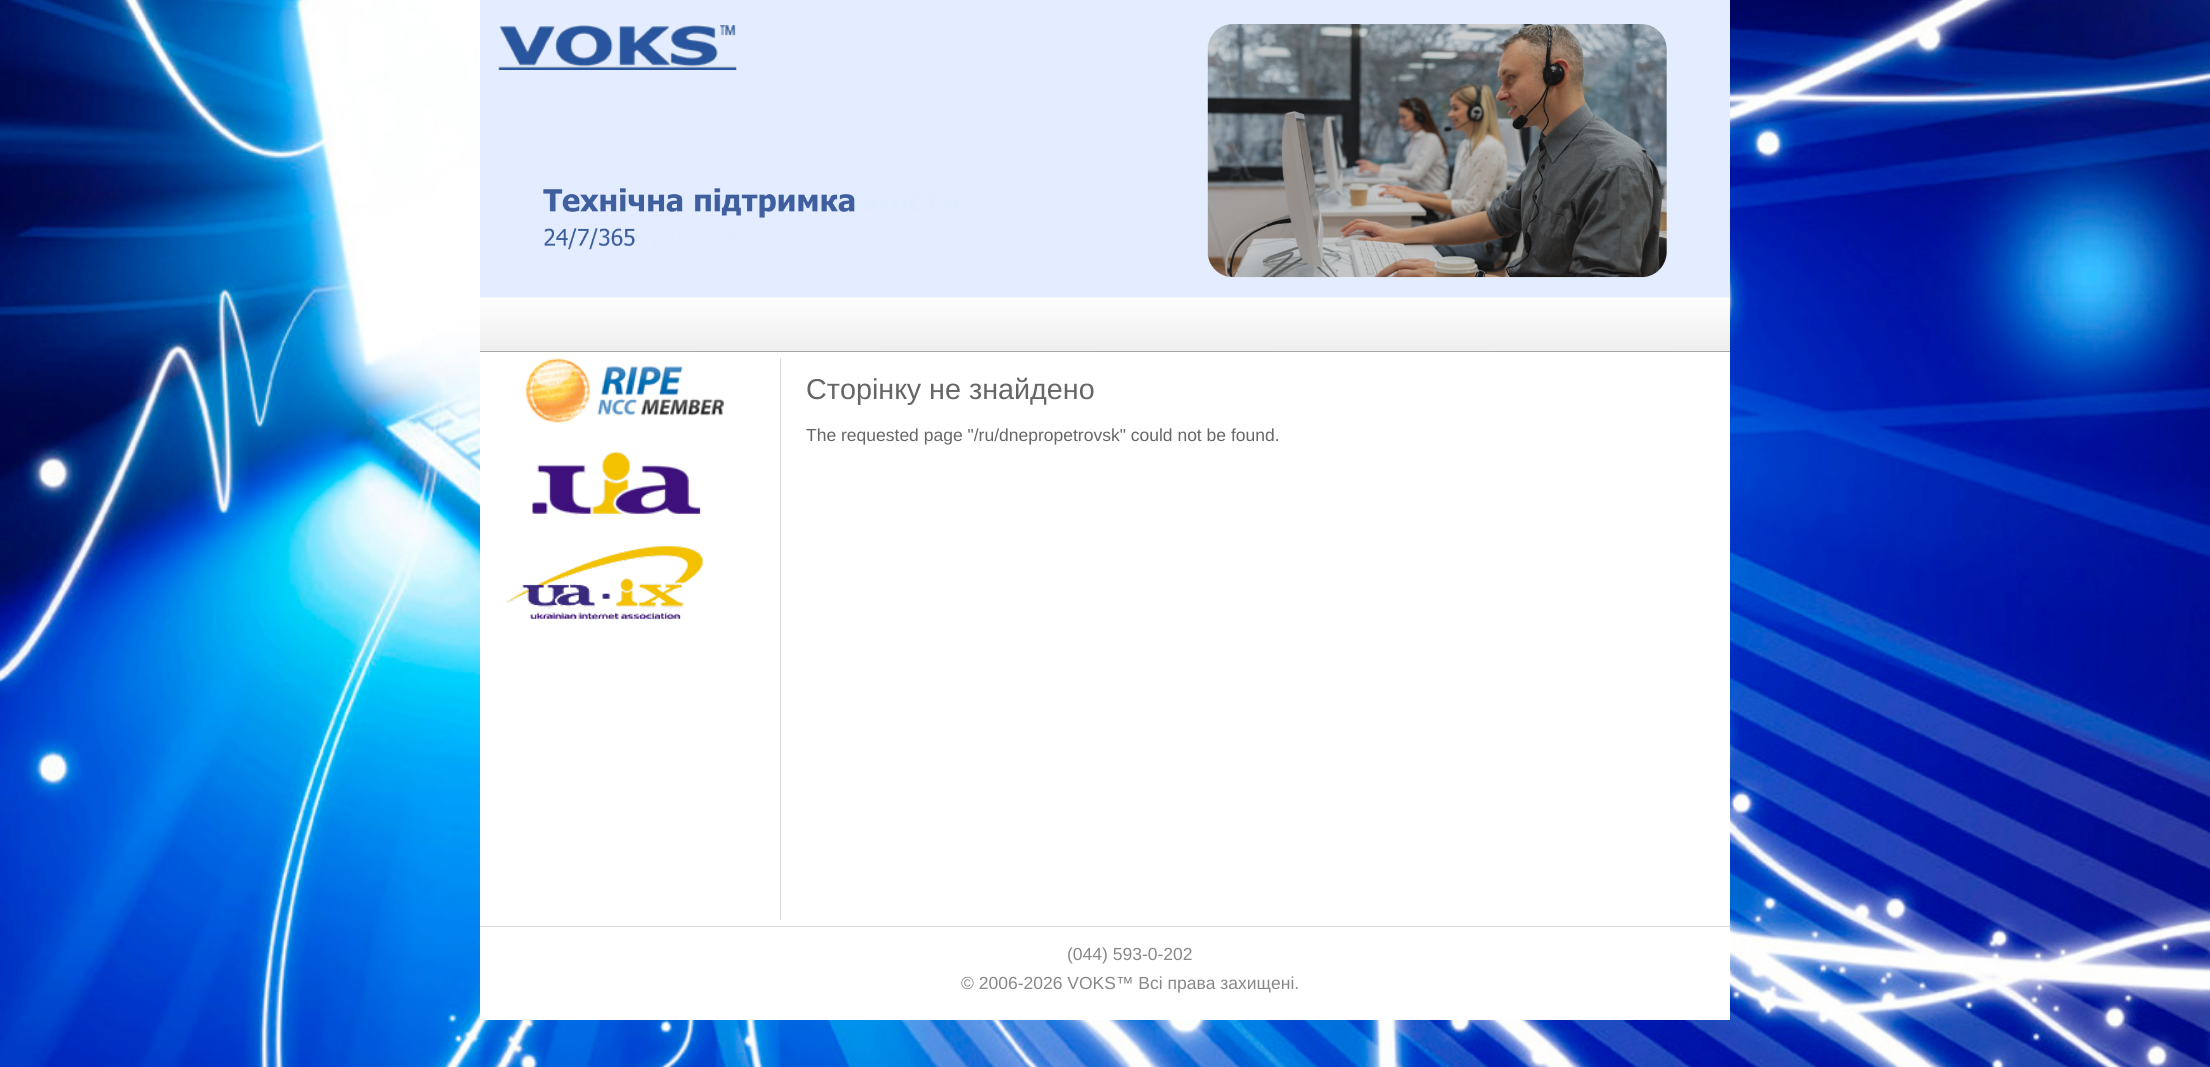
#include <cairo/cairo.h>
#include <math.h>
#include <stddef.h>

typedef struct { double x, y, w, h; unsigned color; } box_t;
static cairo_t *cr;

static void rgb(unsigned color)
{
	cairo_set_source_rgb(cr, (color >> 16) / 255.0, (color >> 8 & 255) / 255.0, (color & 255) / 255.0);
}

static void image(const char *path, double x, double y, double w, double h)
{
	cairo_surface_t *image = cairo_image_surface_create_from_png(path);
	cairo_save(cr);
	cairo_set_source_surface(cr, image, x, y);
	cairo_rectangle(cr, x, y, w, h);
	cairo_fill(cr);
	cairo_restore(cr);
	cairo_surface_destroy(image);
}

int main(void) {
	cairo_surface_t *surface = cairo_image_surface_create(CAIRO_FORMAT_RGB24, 2210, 1067);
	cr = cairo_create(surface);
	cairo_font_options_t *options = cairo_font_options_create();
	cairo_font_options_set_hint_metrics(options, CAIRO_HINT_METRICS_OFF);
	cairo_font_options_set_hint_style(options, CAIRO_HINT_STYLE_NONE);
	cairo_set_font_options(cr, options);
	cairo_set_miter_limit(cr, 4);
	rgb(0xffffff);
	cairo_paint(cr);
	image("img/1.png", 0, 0, 2210, 1067);
	rgb(0xffffff);
	cairo_rectangle(cr, 480, 0, 1250, 926);
	cairo_fill(cr);
	image("img/3.png", 545, 24, 1122, 253);
	image("img/2.png", 480, 0, 1250, 298);
	image("img/4.png", 498, 25, 239, 45);
	image("img/5.png", 480, 297, 1250, 54);
	rgb(0xa6a6a6);
	cairo_rectangle(cr, 480, 351, 1250, 1);
	cairo_fill(cr);
	image("img/6.png", 525, 358, 200, 65);
	image("img/7.png", 532, 452, 169, 63);
	image("img/8.png", 506, 546, 198, 74);
	{
		static const box_t items[] = {
			{780, 358, 1, 562, 0xdddddd},
			{480, 927, 1250, 93, 0xffffff},
			{480, 926, 1250, 1, 0xdddddd},
		};
		for (size_t i = 0; i < sizeof items / sizeof *items; i++) {
			rgb(items[i].color);
			cairo_rectangle(cr, items[i].x, items[i].y, items[i].w, items[i].h);
			cairo_fill(cr);
		}
	}
	cairo_select_font_face(cr, "Liberation Sans", CAIRO_FONT_SLANT_NORMAL, CAIRO_FONT_WEIGHT_NORMAL);
	cairo_set_font_size(cr, 28.75);
	rgb(0x666666);
	cairo_move_to(cr, 806, 399);
	cairo_show_text(cr, "Сторінку не знайдено");
	cairo_set_font_size(cr, 17.5);
	cairo_move_to(cr, 806, 441);
	cairo_show_text(cr, "The requested page \"/ru/dnepropetrovsk\" could not be found.");
	rgb(0x888888);
	cairo_move_to(cr, 1067, 960);
	cairo_show_text(cr, "(044) 593-0-202");
	cairo_move_to(cr, 961, 989);
	cairo_show_text(cr, "© 2006-2026 VOKS™ Всі права захищені.");
	cairo_surface_write_to_png(surface, "page.png");
	cairo_font_options_destroy(options);
	cairo_destroy(cr);
	cairo_surface_destroy(surface);
	return 0;
}
